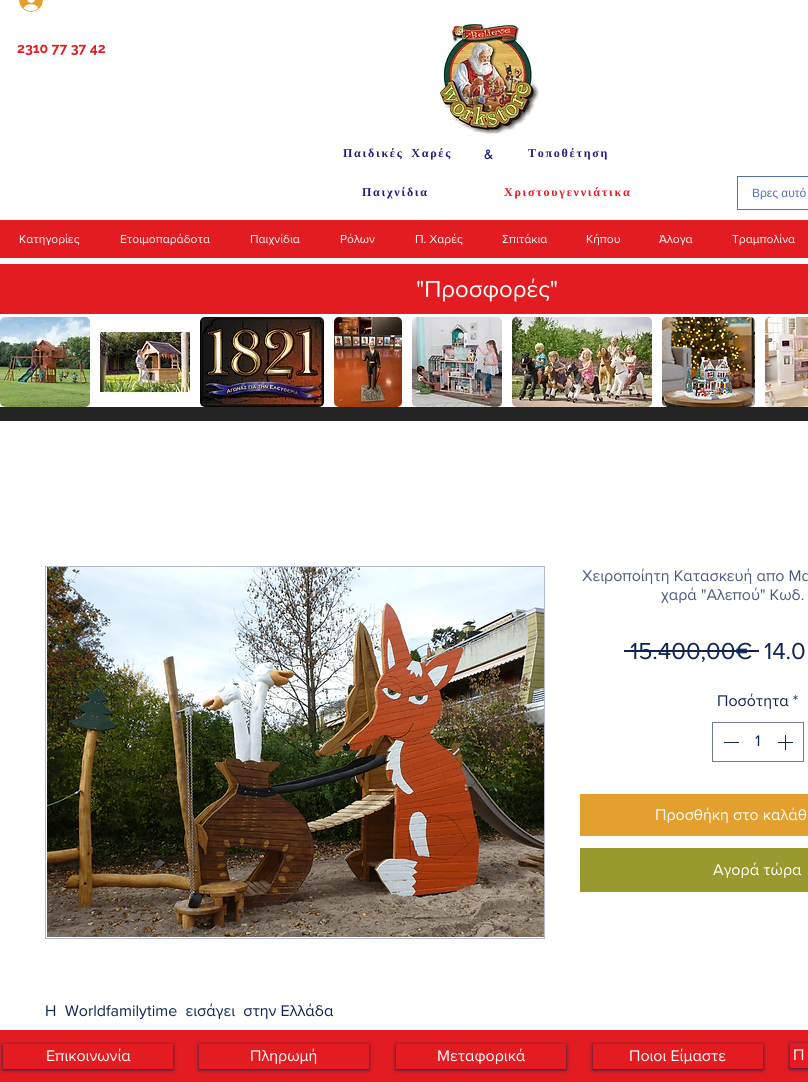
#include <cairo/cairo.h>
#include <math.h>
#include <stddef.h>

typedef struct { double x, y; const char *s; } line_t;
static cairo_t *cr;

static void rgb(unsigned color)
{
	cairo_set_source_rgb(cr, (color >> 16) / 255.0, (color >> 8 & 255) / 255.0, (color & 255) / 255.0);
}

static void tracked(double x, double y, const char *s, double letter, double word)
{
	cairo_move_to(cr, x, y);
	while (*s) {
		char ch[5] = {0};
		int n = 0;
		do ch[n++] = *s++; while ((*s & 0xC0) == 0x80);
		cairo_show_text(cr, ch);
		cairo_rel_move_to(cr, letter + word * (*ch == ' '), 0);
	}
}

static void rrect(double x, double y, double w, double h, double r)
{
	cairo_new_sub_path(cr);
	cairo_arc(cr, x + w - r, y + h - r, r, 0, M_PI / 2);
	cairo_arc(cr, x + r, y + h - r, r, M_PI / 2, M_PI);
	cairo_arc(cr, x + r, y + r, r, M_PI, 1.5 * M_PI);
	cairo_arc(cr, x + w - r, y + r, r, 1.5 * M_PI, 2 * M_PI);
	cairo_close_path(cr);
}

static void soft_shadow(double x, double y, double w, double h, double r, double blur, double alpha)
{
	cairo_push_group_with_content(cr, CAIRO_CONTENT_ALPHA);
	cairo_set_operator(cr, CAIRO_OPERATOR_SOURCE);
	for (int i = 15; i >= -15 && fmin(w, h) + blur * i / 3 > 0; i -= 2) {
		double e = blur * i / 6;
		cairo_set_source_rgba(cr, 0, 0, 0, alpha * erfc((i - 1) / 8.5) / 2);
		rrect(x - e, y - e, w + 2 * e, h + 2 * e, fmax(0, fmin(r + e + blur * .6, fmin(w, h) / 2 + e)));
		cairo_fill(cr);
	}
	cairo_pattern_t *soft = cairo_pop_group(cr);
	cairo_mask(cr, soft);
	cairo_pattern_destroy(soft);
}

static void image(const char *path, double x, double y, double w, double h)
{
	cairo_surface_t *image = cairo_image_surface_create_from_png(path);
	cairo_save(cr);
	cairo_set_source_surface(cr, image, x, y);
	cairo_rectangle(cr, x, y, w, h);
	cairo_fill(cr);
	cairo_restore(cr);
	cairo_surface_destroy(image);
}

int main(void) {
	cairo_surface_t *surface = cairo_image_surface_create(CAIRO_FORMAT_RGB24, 808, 1082);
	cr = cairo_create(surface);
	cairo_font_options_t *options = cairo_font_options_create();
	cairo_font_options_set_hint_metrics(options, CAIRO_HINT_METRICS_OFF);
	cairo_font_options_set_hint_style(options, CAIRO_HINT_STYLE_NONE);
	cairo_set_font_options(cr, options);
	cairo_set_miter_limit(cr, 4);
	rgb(0xffffff);
	cairo_paint(cr);
	image("img/1.png", 19, 0, 24, 12);
	image("img/2.png", 440, 24, 99, 111);
	cairo_rectangle(cr, 737.5, 176.5, 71, 33);
	rgb(0x566fb8);
	cairo_set_line_width(cr, 1);
	cairo_stroke(cr);
	rgb(0xe21c21);
	cairo_rectangle(cr, 0, 220, 808, 38);
	cairo_fill(cr);
	cairo_rectangle(cr, 0, 264, 808, 50);
	cairo_fill(cr);
	image("img/3.png", 0, 317, 90, 90);
	image("img/4.png", 100, 328, 90, 69);
	image("img/5.png", 200, 317, 124, 90);
	image("img/6.png", 334, 317, 68, 90);
	image("img/7.png", 412, 317, 90, 90);
	image("img/8.png", 512, 317, 140, 90);
	image("img/9.png", 662, 317, 93, 90);
	image("img/10.png", 765, 317, 43, 90);
	rgb(0x242323);
	cairo_rectangle(cr, 0, 407, 808, 14);
	cairo_fill(cr);
	rgb(0x0f2453);
	cairo_rectangle(cr, 624, 650, 135, 2);
	cairo_fill(cr);
	cairo_rectangle(cr, 712.5, 722.5, 91, 39);
	rgb(0x6f7c98);
	cairo_stroke(cr);
	rgb(0x0f2453);
	cairo_rectangle(cr, 724, 742, 15, 1);
	cairo_fill(cr);
	image("img/11.png", 778, 735, 15, 15);
	rgb(0xe4a02e);
	cairo_rectangle(cr, 580, 794, 228, 42);
	cairo_fill(cr);
	rgb(0x98992e);
	cairo_rectangle(cr, 580, 848, 228, 44);
	cairo_fill(cr);
	cairo_rectangle(cr, 45.5, 566.5, 499, 372);
	rgb(0xb2b9c8);
	cairo_stroke(cr);
	image("img/12.png", 47, 567, 497, 370);
	rgb(0xe21c21);
	cairo_rectangle(cr, 0, 1030, 808, 52);
	cairo_fill(cr);
	cairo_save(cr);
	cairo_set_fill_rule(cr, CAIRO_FILL_RULE_EVEN_ODD);
	cairo_new_path(cr);
	cairo_move_to(cr, 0, 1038);
	cairo_line_to(cr, 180, 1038);
	cairo_line_to(cr, 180, 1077);
	cairo_line_to(cr, 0, 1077);
	cairo_close_path(cr);
	cairo_move_to(cr, 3, 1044);
	cairo_line_to(cr, 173, 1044);
	cairo_line_to(cr, 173, 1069);
	cairo_line_to(cr, 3, 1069);
	cairo_close_path(cr);
	cairo_clip(cr);
	rgb(0x0f2453);
	soft_shadow(3, 1045, 170, 25, 0, 2, 1);
	cairo_restore(cr);
	cairo_save(cr);
	cairo_set_fill_rule(cr, CAIRO_FILL_RULE_EVEN_ODD);
	cairo_new_path(cr);
	cairo_move_to(cr, 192, 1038);
	cairo_line_to(cr, 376, 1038);
	cairo_line_to(cr, 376, 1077);
	cairo_line_to(cr, 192, 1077);
	cairo_close_path(cr);
	cairo_move_to(cr, 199, 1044);
	cairo_line_to(cr, 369, 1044);
	cairo_line_to(cr, 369, 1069);
	cairo_line_to(cr, 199, 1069);
	cairo_close_path(cr);
	cairo_clip(cr);
	rgb(0x0f2453);
	soft_shadow(199, 1045, 170, 25, 0, 2, 0.98);
	cairo_restore(cr);
	cairo_save(cr);
	cairo_set_fill_rule(cr, CAIRO_FILL_RULE_EVEN_ODD);
	cairo_new_path(cr);
	cairo_move_to(cr, 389, 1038);
	cairo_line_to(cr, 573, 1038);
	cairo_line_to(cr, 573, 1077);
	cairo_line_to(cr, 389, 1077);
	cairo_close_path(cr);
	cairo_move_to(cr, 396, 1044);
	cairo_line_to(cr, 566, 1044);
	cairo_line_to(cr, 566, 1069);
	cairo_line_to(cr, 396, 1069);
	cairo_close_path(cr);
	cairo_clip(cr);
	rgb(0x0f2453);
	soft_shadow(396, 1045, 170, 25, 0, 2, 1);
	cairo_restore(cr);
	cairo_save(cr);
	cairo_set_fill_rule(cr, CAIRO_FILL_RULE_EVEN_ODD);
	cairo_new_path(cr);
	cairo_move_to(cr, 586, 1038);
	cairo_line_to(cr, 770, 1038);
	cairo_line_to(cr, 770, 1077);
	cairo_line_to(cr, 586, 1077);
	cairo_close_path(cr);
	cairo_move_to(cr, 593, 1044);
	cairo_line_to(cr, 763, 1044);
	cairo_line_to(cr, 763, 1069);
	cairo_line_to(cr, 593, 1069);
	cairo_close_path(cr);
	cairo_clip(cr);
	rgb(0x0f2453);
	soft_shadow(593, 1045, 170, 25, 0, 2, 1);
	cairo_restore(cr);
	cairo_save(cr);
	cairo_set_fill_rule(cr, CAIRO_FILL_RULE_EVEN_ODD);
	cairo_new_path(cr);
	cairo_move_to(cr, 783, 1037);
	cairo_line_to(cr, 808, 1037);
	cairo_line_to(cr, 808, 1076);
	cairo_line_to(cr, 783, 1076);
	cairo_close_path(cr);
	cairo_move_to(cr, 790, 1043);
	cairo_line_to(cr, 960, 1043);
	cairo_line_to(cr, 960, 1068);
	cairo_line_to(cr, 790, 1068);
	cairo_close_path(cr);
	cairo_clip(cr);
	rgb(0x0f2453);
	soft_shadow(790, 1044, 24, 25, 0, 2, 0.98);
	cairo_restore(cr);
	cairo_select_font_face(cr, "Raleway", CAIRO_FONT_SLANT_NORMAL, CAIRO_FONT_WEIGHT_BOLD);
	cairo_set_font_size(cr, 14);
	cairo_move_to(cr, 17, 53);
	cairo_show_text(cr, "2310 77 37 42");
	cairo_select_font_face(cr, "Liberation Serif", CAIRO_FONT_SLANT_NORMAL, CAIRO_FONT_WEIGHT_BOLD);
	cairo_set_font_size(cr, 12);
	rgb(0x221f7b);
	tracked(343, 157, "Παιδικές Χαρές", 1.75, 3);
	cairo_select_font_face(cr, "futura", CAIRO_FONT_SLANT_NORMAL, CAIRO_FONT_WEIGHT_BOLD);
	tracked(484, 159, "&", 1.75, 0);
	cairo_select_font_face(cr, "Liberation Serif", CAIRO_FONT_SLANT_NORMAL, CAIRO_FONT_WEIGHT_BOLD);
	tracked(528, 157, "Τοποθέτηση", 1.75, 0);
	tracked(362, 196, "Παιχνίδια", 1.75, 0);
	rgb(0xe21c21);
	tracked(504, 196, "Χριστουγεννιάτικα", 1.75, 0);
	cairo_select_font_face(cr, "Liberation Sans", CAIRO_FONT_SLANT_NORMAL, CAIRO_FONT_WEIGHT_NORMAL);
	rgb(0x566fb8);
	cairo_move_to(cr, 752, 197);
	cairo_show_text(cr, "Βρες αυτό");
	cairo_select_font_face(cr, "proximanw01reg", CAIRO_FONT_SLANT_NORMAL, CAIRO_FONT_WEIGHT_NORMAL);
	rgb(0xffffff);
	{
		static const line_t items[] = {
			{19, 243, "Κατηγορίες"},
			{120, 243, "Ετοιμοπαράδοτα"},
			{250, 243, "Παιχνίδια"},
			{340, 243, "Ρόλων"},
			{415, 243, "Π. Χαρές"},
			{502, 243, "Σπιτάκια"},
			{586, 243, "Κήπου"},
			{659, 243, "Άλογα"},
			{732, 243, "Τραμπολίνα"},
		};
		for (size_t i = 0; i < sizeof items / sizeof *items; i++) {
			cairo_move_to(cr, items[i].x, items[i].y);
			cairo_show_text(cr, items[i].s);
		}
	}
	cairo_set_font_size(cr, 24);
	cairo_move_to(cr, 416, 297);
	cairo_show_text(cr, "\"Προσφορές\"");
	cairo_set_font_size(cr, 16);
	rgb(0x4b5b7e);
	cairo_move_to(cr, 582, 581);
	cairo_show_text(cr, "Χειροποίητη Κατασκευή απο Μα");
	cairo_move_to(cr, 661, 600);
	cairo_show_text(cr, "χαρά \"Αλεπού\" Κωδ.");
	cairo_set_font_size(cr, 24);
	rgb(0x0f2453);
	cairo_move_to(cr, 630, 659);
	cairo_show_text(cr, "15.400,00€");
	cairo_move_to(cr, 764, 659);
	cairo_show_text(cr, "14.0");
	cairo_set_font_size(cr, 16);
	cairo_move_to(cr, 717, 706);
	cairo_show_text(cr, "Ποσότητα *");
	cairo_move_to(cr, 755, 746);
	cairo_show_text(cr, "1");
	rgb(0xffffff);
	cairo_move_to(cr, 655, 820);
	cairo_show_text(cr, "Προσθήκη στο καλάθ");
	cairo_move_to(cr, 713, 875);
	cairo_show_text(cr, "Αγορά τώρα");
	rgb(0x0f2453);
	cairo_move_to(cr, 45, 1016);
	cairo_show_text(cr, "Η  Worldfamilytime  εισάγει  στην Ελλάδα");
	rgb(0xffffff);
	{
		static const line_t items[] = {
			{46, 1061, "Επικοινωνία"},
			{250, 1061, "Πληρωμή"},
			{437, 1061, "Μεταφορικά"},
			{629, 1061, "Ποιοι Είμαστε"},
			{793, 1060, "Π"},
		};
		for (size_t i = 0; i < sizeof items / sizeof *items; i++) {
			cairo_move_to(cr, items[i].x, items[i].y);
			cairo_show_text(cr, items[i].s);
		}
	}
	cairo_surface_write_to_png(surface, "page.png");
	cairo_font_options_destroy(options);
	cairo_destroy(cr);
	cairo_surface_destroy(surface);
	return 0;
}
